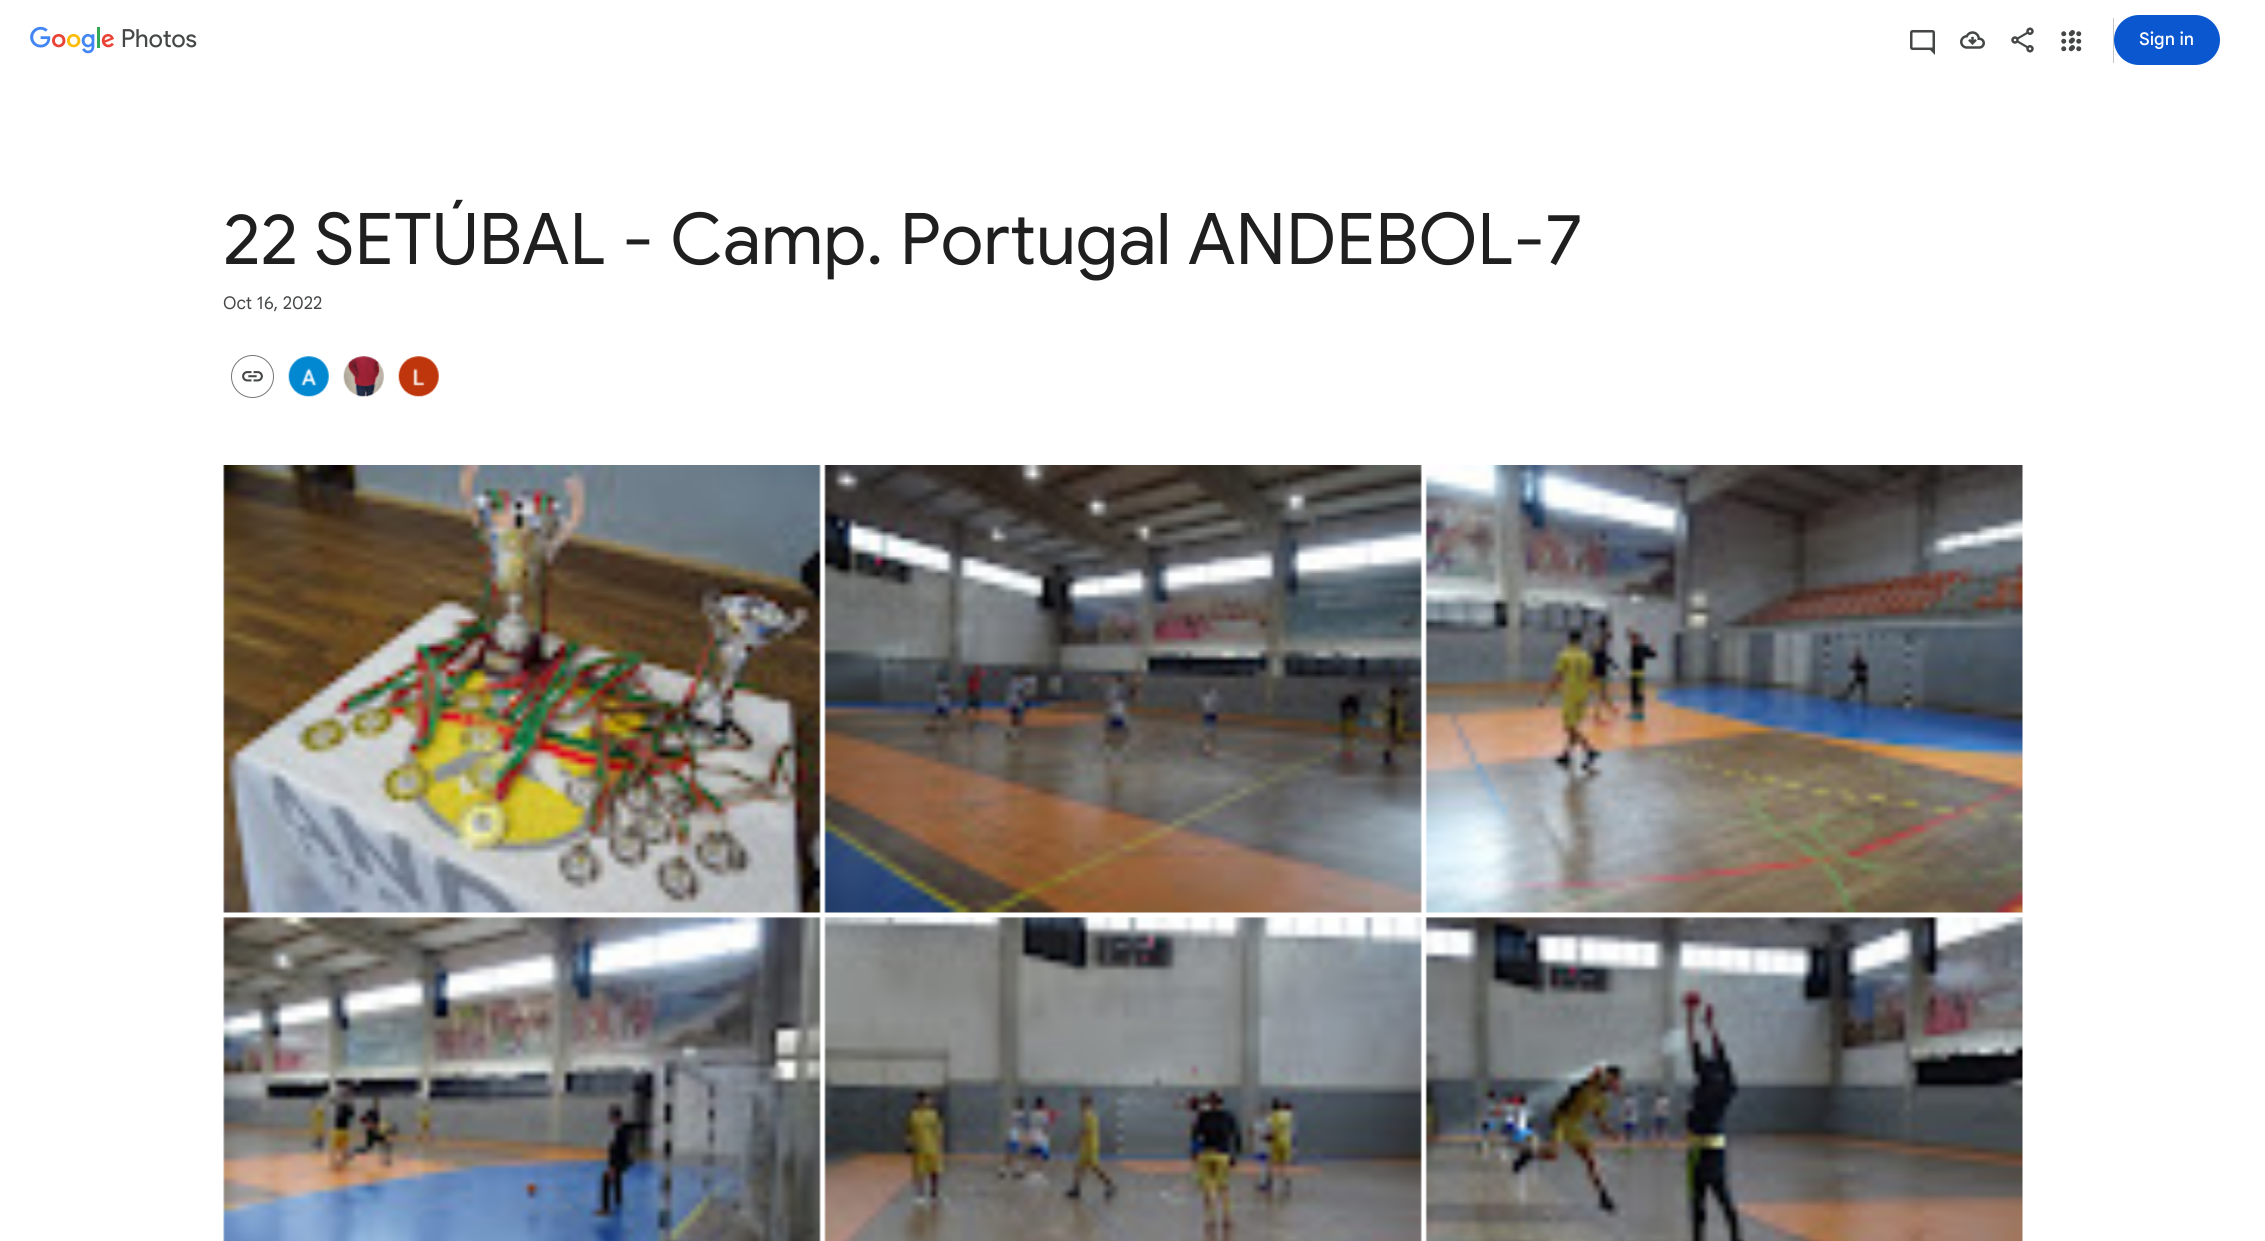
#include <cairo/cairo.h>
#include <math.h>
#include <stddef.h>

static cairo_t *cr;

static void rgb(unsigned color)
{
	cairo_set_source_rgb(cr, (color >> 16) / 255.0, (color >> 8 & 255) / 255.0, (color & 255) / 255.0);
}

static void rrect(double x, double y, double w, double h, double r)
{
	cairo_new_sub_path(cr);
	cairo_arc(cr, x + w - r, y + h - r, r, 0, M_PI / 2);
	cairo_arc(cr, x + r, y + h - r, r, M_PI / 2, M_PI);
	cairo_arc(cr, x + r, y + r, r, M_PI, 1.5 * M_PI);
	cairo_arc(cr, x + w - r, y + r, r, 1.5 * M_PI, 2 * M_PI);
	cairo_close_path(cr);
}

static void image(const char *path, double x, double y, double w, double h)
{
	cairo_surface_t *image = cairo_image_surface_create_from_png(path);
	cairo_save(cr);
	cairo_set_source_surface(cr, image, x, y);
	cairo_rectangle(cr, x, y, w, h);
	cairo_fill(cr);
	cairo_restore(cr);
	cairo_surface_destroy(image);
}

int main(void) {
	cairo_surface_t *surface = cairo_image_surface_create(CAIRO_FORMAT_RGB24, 2265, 1241);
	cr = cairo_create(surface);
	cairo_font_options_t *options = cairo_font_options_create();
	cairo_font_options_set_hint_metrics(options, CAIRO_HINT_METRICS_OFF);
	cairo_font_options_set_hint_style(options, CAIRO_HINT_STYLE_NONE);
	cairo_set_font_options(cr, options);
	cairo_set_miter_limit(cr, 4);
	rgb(0xffffff);
	cairo_paint(cr);
	image("img/1.png", 30, 26, 84, 28);
	image("img/2.png", 1910, 30, 25, 25);
	image("img/3.png", 1960, 31, 25, 18);
	image("img/4.png", 2011, 27, 23, 26);
	image("img/5.png", 2070, 30, 5, 20);
	rgb(0xc4c7c5);
	cairo_rectangle(cr, 2113, 18, 1, 45);
	cairo_fill(cr);
	cairo_arc(cr, 252.5, 376.5, 21, 0, 2 * M_PI);
	rgb(0x747775);
	cairo_set_line_width(cr, 1);
	cairo_stroke(cr);
	image("img/6.png", 242, 371, 21, 11);
	image("img/7.png", 288, 356, 41, 41);
	image("img/8.png", 343, 356, 41, 41);
	image("img/9.png", 398, 356, 41, 41);
	image("img/10.png", 223, 465, 598, 448);
	image("img/11.png", 824, 465, 598, 448);
	image("img/12.png", 1425, 465, 598, 448);
	image("img/13.png", 223, 917, 598, 324);
	image("img/14.png", 824, 917, 598, 324);
	image("img/15.png", 1425, 917, 598, 324);
	image("img/16.png", 2061, 31, 21, 21);
	rgb(0x0b57d0);
	rrect(2114, 15, 106, 50, 25);
	cairo_fill(cr);
	cairo_select_font_face(cr, "Product Sans", CAIRO_FONT_SLANT_NORMAL, CAIRO_FONT_WEIGHT_NORMAL);
	cairo_set_font_size(cr, 25);
	rgb(0x444746);
	cairo_move_to(cr, 121, 47);
	cairo_show_text(cr, "Photos");
	cairo_select_font_face(cr, "Google Sans", CAIRO_FONT_SLANT_NORMAL, CAIRO_FONT_WEIGHT_NORMAL);
	cairo_set_font_size(cr, 71.25);
	rgb(0x1f1f1f);
	cairo_move_to(cr, 223, 264);
	cairo_show_text(cr, "22 SETÚBAL - Camp. Portugal ANDEBOL-7");
	cairo_select_font_face(cr, "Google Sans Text", CAIRO_FONT_SLANT_NORMAL, CAIRO_FONT_WEIGHT_NORMAL);
	cairo_set_font_size(cr, 17.5);
	rgb(0x444746);
	cairo_move_to(cr, 223, 309);
	cairo_show_text(cr, "Oct 16, 2022");
	cairo_select_font_face(cr, "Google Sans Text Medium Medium", CAIRO_FONT_SLANT_NORMAL, CAIRO_FONT_WEIGHT_NORMAL);
	rgb(0xffffff);
	cairo_move_to(cr, 2139, 45);
	cairo_show_text(cr, "Sign in");
	cairo_surface_write_to_png(surface, "page.png");
	cairo_font_options_destroy(options);
	cairo_destroy(cr);
	cairo_surface_destroy(surface);
	return 0;
}
